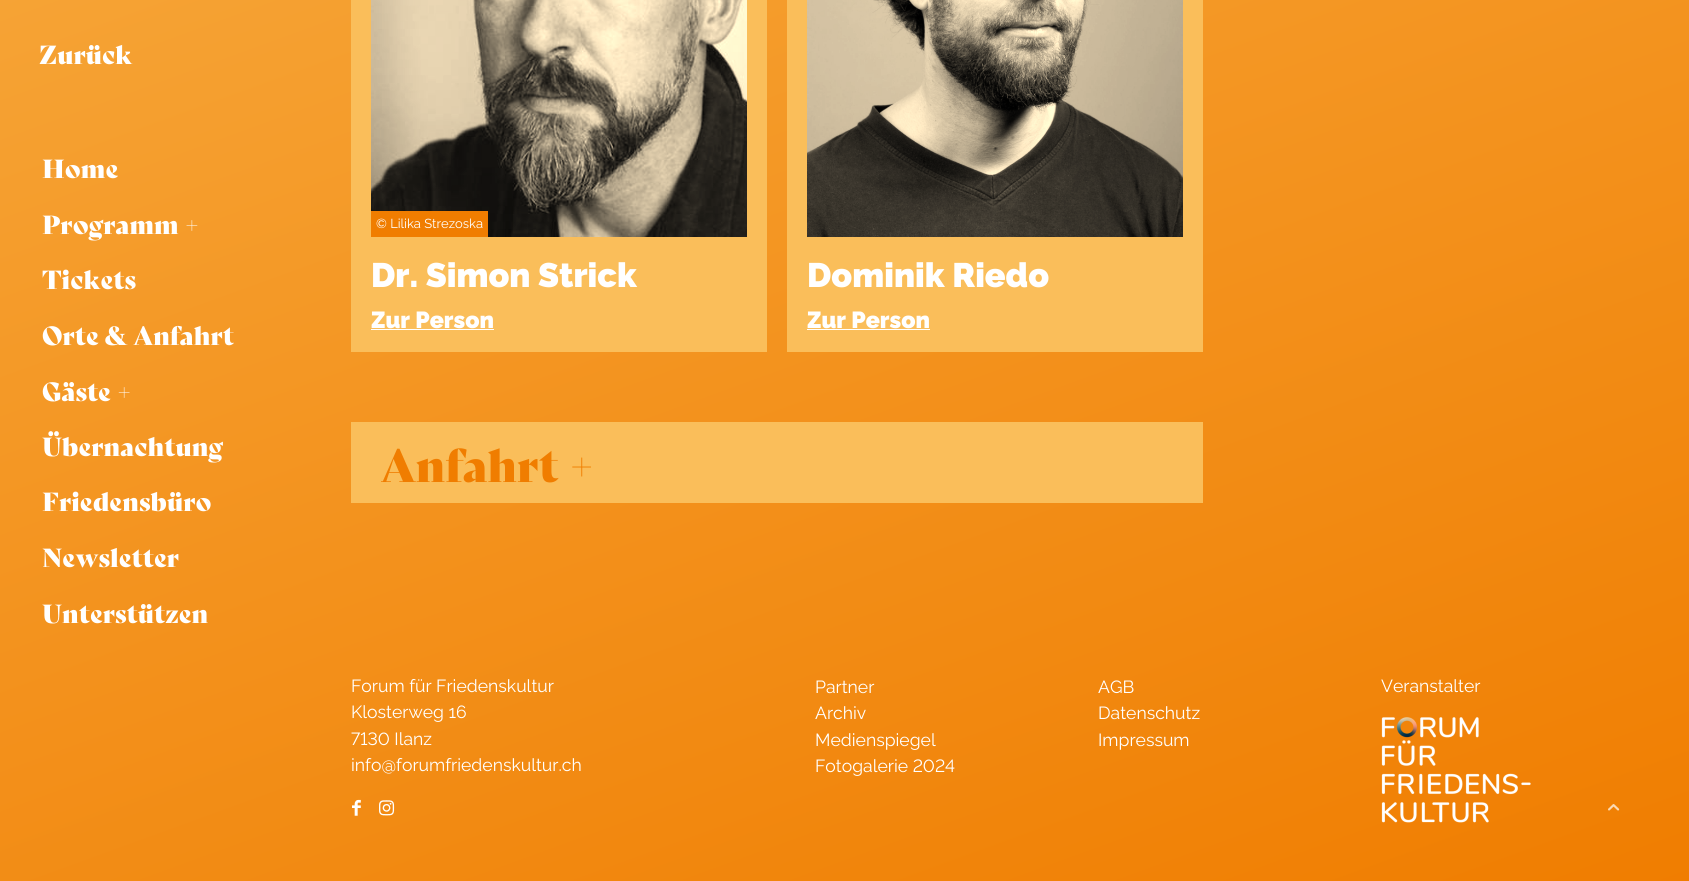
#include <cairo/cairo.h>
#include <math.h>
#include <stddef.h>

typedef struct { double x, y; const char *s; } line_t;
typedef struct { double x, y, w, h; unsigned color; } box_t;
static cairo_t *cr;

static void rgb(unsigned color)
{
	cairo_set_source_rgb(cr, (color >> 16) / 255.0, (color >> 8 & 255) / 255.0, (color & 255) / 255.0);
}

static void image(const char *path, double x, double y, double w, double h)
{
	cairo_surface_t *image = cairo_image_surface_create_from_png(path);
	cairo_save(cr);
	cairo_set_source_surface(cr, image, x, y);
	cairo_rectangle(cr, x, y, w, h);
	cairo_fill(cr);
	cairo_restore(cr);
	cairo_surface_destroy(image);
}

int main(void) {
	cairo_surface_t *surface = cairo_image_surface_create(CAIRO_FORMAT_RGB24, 1689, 881);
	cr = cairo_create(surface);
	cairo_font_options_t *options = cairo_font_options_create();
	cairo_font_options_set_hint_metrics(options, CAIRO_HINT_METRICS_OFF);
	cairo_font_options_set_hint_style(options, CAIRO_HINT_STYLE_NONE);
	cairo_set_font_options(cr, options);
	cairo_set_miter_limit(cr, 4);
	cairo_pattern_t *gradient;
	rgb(0xffffff);
	cairo_paint(cr);
	gradient = cairo_pattern_create_linear(432, -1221, 1257, 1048);
	cairo_pattern_add_color_stop_rgba(gradient, 0, 0.98, 0.745, 0.353, 1);
	cairo_pattern_add_color_stop_rgba(gradient, 1, 0.941, 0.49, 0, 1);
	cairo_set_source(cr, gradient);
	cairo_pattern_destroy(gradient);
	cairo_rectangle(cr, 0, 0, 1689, 881);
	cairo_fill(cr);
	rgb(0xfabe5a);
	cairo_rectangle(cr, 351, 0, 416, 352);
	cairo_fill(cr);
	image("img/1.png", 371, 0, 376, 237);
	{
		static const box_t items[] = {
			{371, 211, 117, 26, 0xf07d00},
			{371, 329, 123, 1, 0xffffff},
			{787, 0, 416, 352, 0xfabe5a},
		};
		for (size_t i = 0; i < sizeof items / sizeof *items; i++) {
			rgb(items[i].color);
			cairo_rectangle(cr, items[i].x, items[i].y, items[i].w, items[i].h);
			cairo_fill(cr);
		}
	}
	image("img/2.png", 807, 0, 376, 237);
	rgb(0xffffff);
	cairo_rectangle(cr, 807, 329, 123, 1);
	cairo_fill(cr);
	rgb(0xfabe5a);
	cairo_rectangle(cr, 351, 422, 852, 81);
	cairo_fill(cr);
	image("img/3.png", 352, 799, 9, 17);
	image("img/4.png", 379, 800, 16, 16);
	image("img/5.png", 1381, 717, 150, 106);
	image("img/6.png", 1608, 804, 12, 7);
	cairo_select_font_face(cr, "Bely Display", CAIRO_FONT_SLANT_NORMAL, CAIRO_FONT_WEIGHT_NORMAL);
	cairo_set_font_size(cr, 25.5);
	rgb(0xffffff);
	{
		static const line_t items[] = {
			{39, 64, "Zurück"},
			{42, 178, "Home"},
			{42, 234, "Programm +"},
			{42, 289, "Tickets"},
			{42, 345, "Orte & Anfahrt"},
			{42, 401, "Gäste +"},
			{42, 456, "Übernachtung"},
			{42, 511, "Friedensbüro"},
			{42, 567, "Newsletter"},
			{42, 623, "Unterstützen"},
		};
		for (size_t i = 0; i < sizeof items / sizeof *items; i++) {
			cairo_move_to(cr, items[i].x, items[i].y);
			cairo_show_text(cr, items[i].s);
		}
	}
	cairo_select_font_face(cr, "Raleway", CAIRO_FONT_SLANT_NORMAL, CAIRO_FONT_WEIGHT_NORMAL);
	cairo_set_font_size(cr, 13);
	cairo_move_to(cr, 376, 228);
	cairo_show_text(cr, "© Lilika Strezoska");
	cairo_select_font_face(cr, "Raleway Black", CAIRO_FONT_SLANT_NORMAL, CAIRO_FONT_WEIGHT_NORMAL);
	cairo_set_font_size(cr, 34);
	cairo_move_to(cr, 371, 287);
	cairo_show_text(cr, "Dr. Simon Strick");
	cairo_set_font_size(cr, 23.25);
	cairo_move_to(cr, 371, 328);
	cairo_show_text(cr, "Zur Person");
	cairo_set_font_size(cr, 34);
	cairo_move_to(cr, 807, 287);
	cairo_show_text(cr, "Dominik Riedo");
	cairo_set_font_size(cr, 23.25);
	cairo_move_to(cr, 807, 328);
	cairo_show_text(cr, "Zur Person");
	cairo_select_font_face(cr, "Bely Display", CAIRO_FONT_SLANT_NORMAL, CAIRO_FONT_WEIGHT_NORMAL);
	cairo_set_font_size(cr, 45);
	rgb(0xf07d00);
	cairo_move_to(cr, 381, 482);
	cairo_show_text(cr, "Anfahrt +");
	cairo_select_font_face(cr, "Raleway", CAIRO_FONT_SLANT_NORMAL, CAIRO_FONT_WEIGHT_NORMAL);
	cairo_set_font_size(cr, 17.6);
	rgb(0xffffff);
	cairo_move_to(cr, 351, 692);
	cairo_show_text(cr, "Forum für Friedenskultur");
	cairo_move_to(cr, 351, 718);
	cairo_show_text(cr, "Klosterweg 16");
	cairo_select_font_face(cr, "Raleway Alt", CAIRO_FONT_SLANT_NORMAL, CAIRO_FONT_WEIGHT_NORMAL);
	cairo_move_to(cr, 351, 745);
	cairo_show_text(cr, "7130 Ilanz");
	cairo_select_font_face(cr, "Raleway", CAIRO_FONT_SLANT_NORMAL, CAIRO_FONT_WEIGHT_NORMAL);
	{
		static const line_t items[] = {
			{351, 771, "info@forumfriedenskultur.ch"},
			{815, 693, "Partner"},
			{815, 719, "Archiv"},
			{815, 746, "Medienspiegel"},
		};
		for (size_t i = 0; i < sizeof items / sizeof *items; i++) {
			cairo_move_to(cr, items[i].x, items[i].y);
			cairo_show_text(cr, items[i].s);
		}
	}
	cairo_select_font_face(cr, "Raleway Alt", CAIRO_FONT_SLANT_NORMAL, CAIRO_FONT_WEIGHT_NORMAL);
	cairo_move_to(cr, 815, 772);
	cairo_show_text(cr, "Fotogalerie 2024");
	cairo_select_font_face(cr, "Raleway", CAIRO_FONT_SLANT_NORMAL, CAIRO_FONT_WEIGHT_NORMAL);
	{
		static const line_t items[] = {
			{1098, 693, "AGB"},
			{1098, 719, "Datenschutz"},
			{1098, 746, "Impressum"},
			{1381, 692, "Veranstalter"},
		};
		for (size_t i = 0; i < sizeof items / sizeof *items; i++) {
			cairo_move_to(cr, items[i].x, items[i].y);
			cairo_show_text(cr, items[i].s);
		}
	}
	cairo_surface_write_to_png(surface, "page.png");
	cairo_font_options_destroy(options);
	cairo_destroy(cr);
	cairo_surface_destroy(surface);
	return 0;
}
